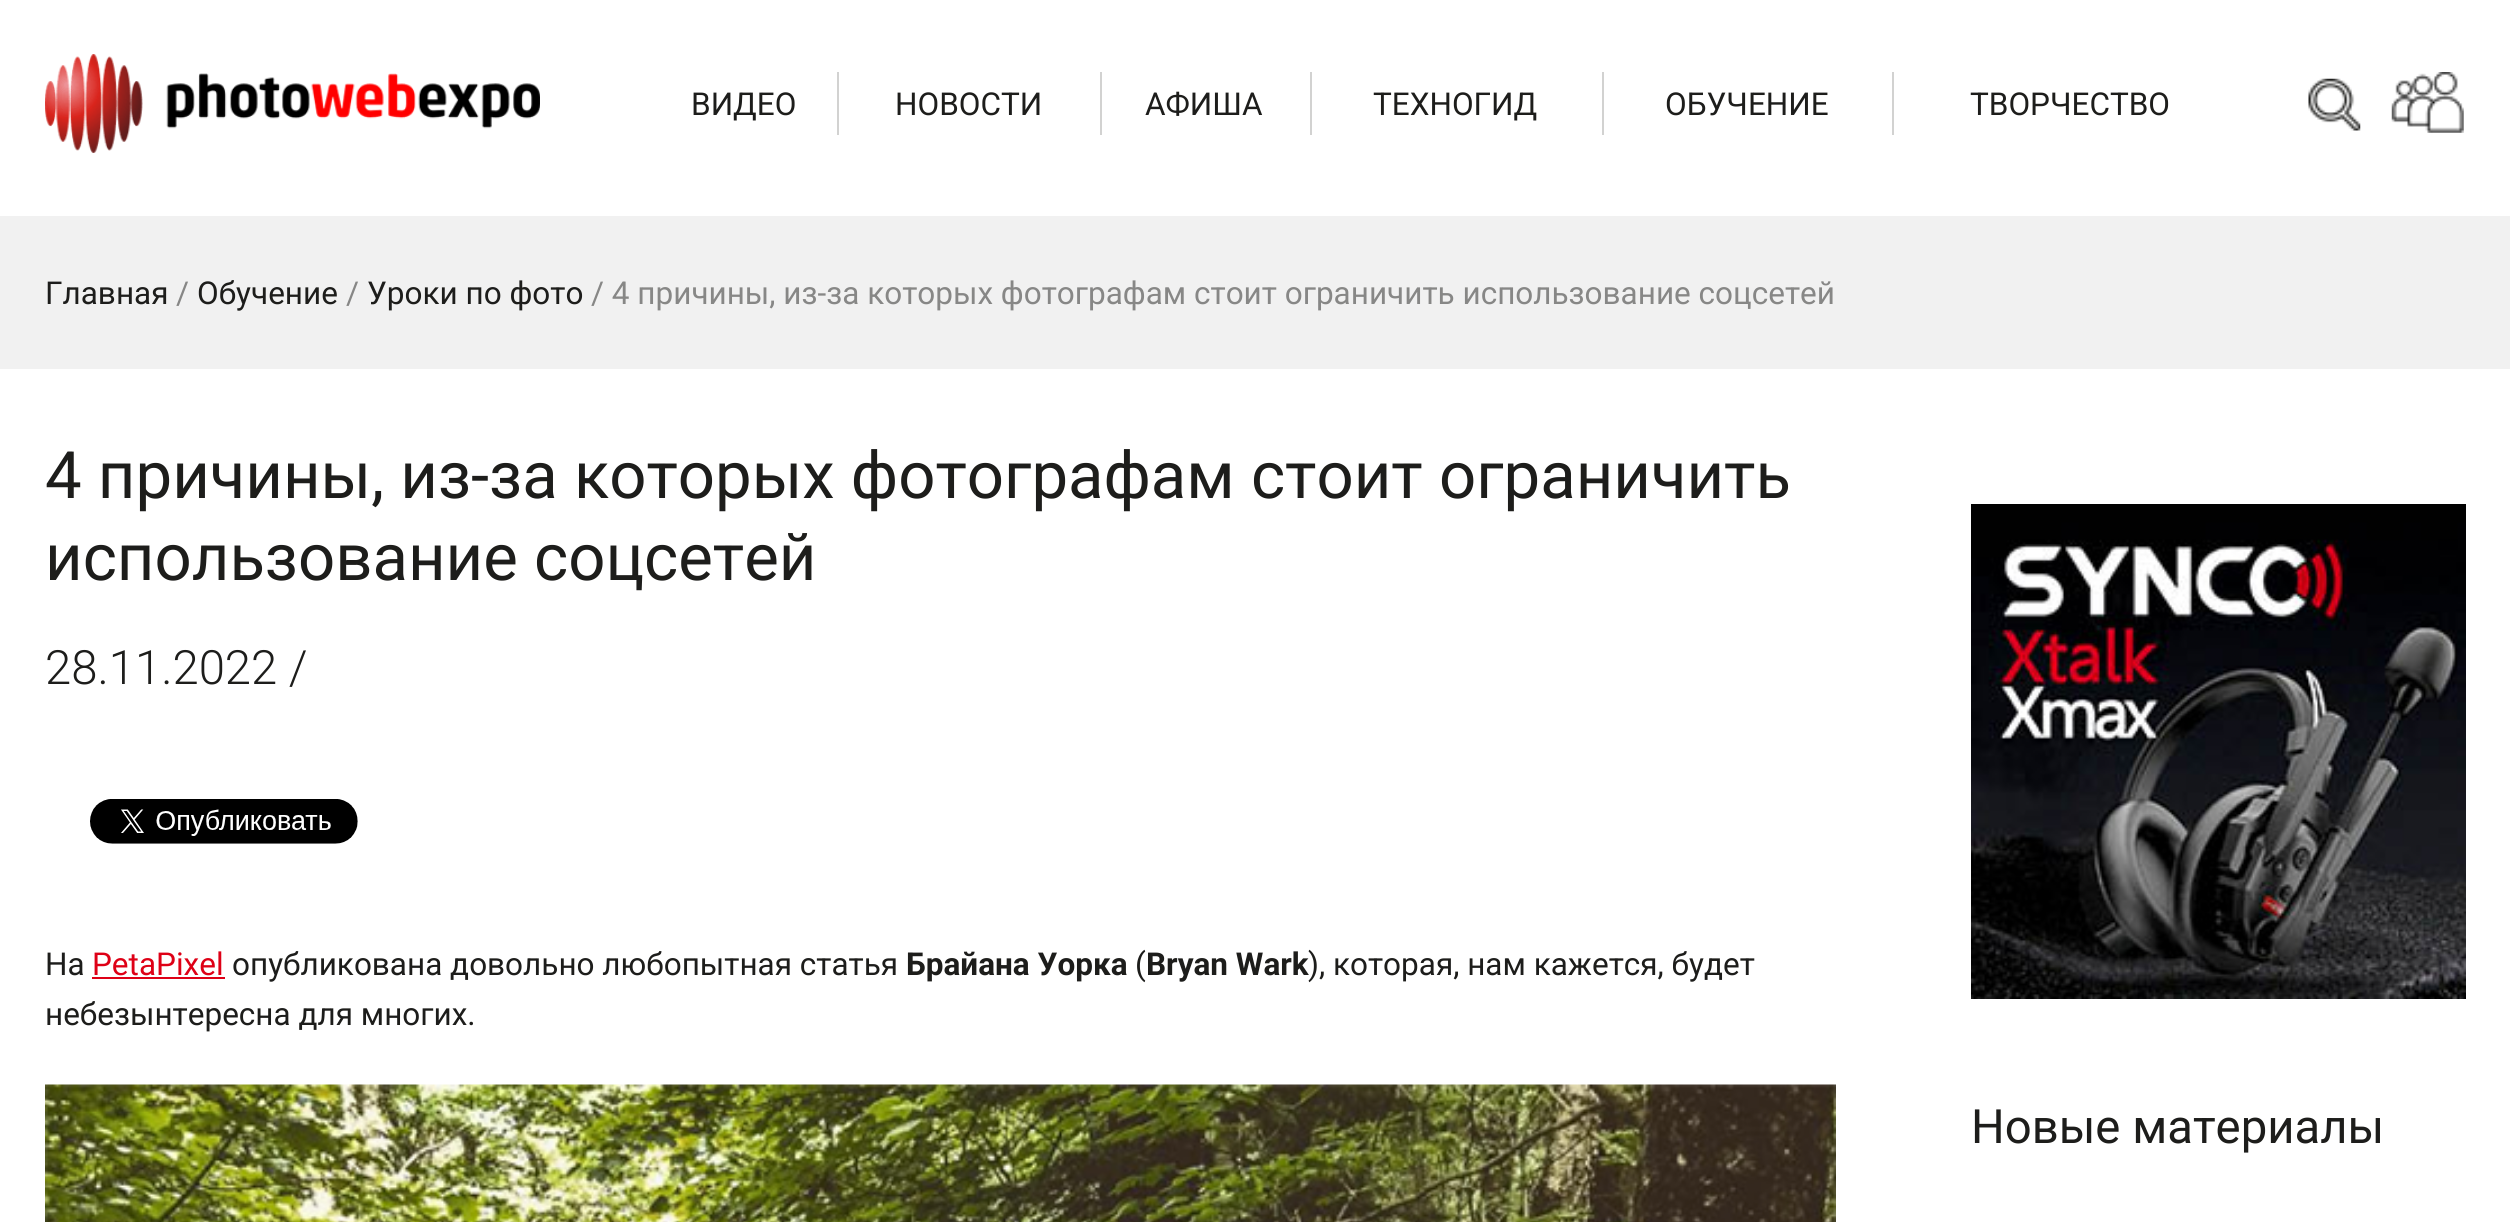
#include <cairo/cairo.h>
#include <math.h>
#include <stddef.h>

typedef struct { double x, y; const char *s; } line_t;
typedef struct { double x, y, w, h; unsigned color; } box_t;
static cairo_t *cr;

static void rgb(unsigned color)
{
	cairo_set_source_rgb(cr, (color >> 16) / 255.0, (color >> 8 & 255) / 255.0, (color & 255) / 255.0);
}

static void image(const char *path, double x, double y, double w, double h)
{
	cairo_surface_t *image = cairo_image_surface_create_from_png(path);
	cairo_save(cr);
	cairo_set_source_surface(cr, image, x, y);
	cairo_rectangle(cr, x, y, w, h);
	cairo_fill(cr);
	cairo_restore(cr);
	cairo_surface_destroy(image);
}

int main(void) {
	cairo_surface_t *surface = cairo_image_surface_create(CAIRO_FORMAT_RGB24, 2510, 1222);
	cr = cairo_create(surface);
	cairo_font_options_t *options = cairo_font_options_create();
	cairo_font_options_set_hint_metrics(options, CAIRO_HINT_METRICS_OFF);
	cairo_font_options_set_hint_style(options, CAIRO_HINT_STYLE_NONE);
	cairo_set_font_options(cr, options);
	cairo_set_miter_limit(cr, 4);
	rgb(0xffffff);
	cairo_paint(cr);
	image("img/1.png", 45, 54, 495, 99);
	{
		static const box_t items[] = {
			{837, 72, 2, 63, 0xd2d2d1},
			{1100, 72, 2, 63, 0xd2d2d1},
			{1310, 72, 2, 63, 0xd2d2d1},
			{1602, 72, 2, 63, 0xd2d2d1},
			{1892, 72, 2, 63, 0xd2d2d1},
		};
		for (size_t i = 0; i < sizeof items / sizeof *items; i++) {
			rgb(items[i].color);
			cairo_rectangle(cr, items[i].x, items[i].y, items[i].w, items[i].h);
			cairo_fill(cr);
		}
	}
	image("img/2.png", 2308, 78, 53, 53);
	image("img/3.png", 2391, 72, 73, 61);
	rgb(0xf1f1f1);
	cairo_rectangle(cr, 0, 216, 2510, 153);
	cairo_fill(cr);
	image("img/4.png", 90, 799, 268, 45);
	rgb(0xde0016);
	cairo_rectangle(cr, 92, 977, 133, 2);
	cairo_fill(cr);
	image("img/5.png", 45, 1084, 1791, 138);
	image("img/6.png", 1971, 504, 495, 495);
	cairo_select_font_face(cr, "Roboto", CAIRO_FONT_SLANT_NORMAL, CAIRO_FONT_WEIGHT_NORMAL);
	cairo_set_font_size(cr, 31.5);
	rgb(0x1d1d1b);
	{
		static const line_t items[] = {
			{691, 115, "ВИДЕО"},
			{895, 115, "НОВОСТИ"},
			{1145, 115, "АФИША"},
			{1373, 115, "ТЕХНОГИД"},
			{1665, 115, "ОБУЧЕНИЕ"},
			{1970, 115, "ТВОРЧЕСТВО"},
			{45, 304, "Главная"},
		};
		for (size_t i = 0; i < sizeof items / sizeof *items; i++) {
			cairo_move_to(cr, items[i].x, items[i].y);
			cairo_show_text(cr, items[i].s);
		}
	}
	rgb(0x878786);
	cairo_move_to(cr, 176, 304);
	cairo_show_text(cr, "/");
	rgb(0x1d1d1b);
	cairo_move_to(cr, 197, 304);
	cairo_show_text(cr, "Обучение");
	rgb(0x878786);
	cairo_move_to(cr, 346, 304);
	cairo_show_text(cr, "/");
	rgb(0x1d1d1b);
	cairo_move_to(cr, 367, 304);
	cairo_show_text(cr, "Уроки по фото");
	rgb(0x878786);
	cairo_move_to(cr, 591, 304);
	cairo_show_text(cr, "/ 4 причины, из-за которых фотографам стоит ограничить использование соцсетей");
	cairo_set_font_size(cr, 65.25);
	rgb(0x1d1d1b);
	cairo_move_to(cr, 45, 498);
	cairo_show_text(cr, "4 причины, из-за которых фотографам стоит ограничить");
	cairo_move_to(cr, 45, 580);
	cairo_show_text(cr, "использование соцсетей");
	cairo_select_font_face(cr, "Roboto Light", CAIRO_FONT_SLANT_NORMAL, CAIRO_FONT_WEIGHT_NORMAL);
	cairo_set_font_size(cr, 47.25);
	cairo_move_to(cr, 45, 684);
	cairo_show_text(cr, "28.11.2022 /");
	cairo_select_font_face(cr, "Roboto", CAIRO_FONT_SLANT_NORMAL, CAIRO_FONT_WEIGHT_NORMAL);
	cairo_set_font_size(cr, 31.5);
	cairo_move_to(cr, 45, 975);
	cairo_show_text(cr, "На");
	rgb(0xde0016);
	cairo_move_to(cr, 92, 975);
	cairo_show_text(cr, "PetaPixel");
	rgb(0x1d1d1b);
	cairo_move_to(cr, 232, 975);
	cairo_show_text(cr, "опубликована довольно любопытная статья");
	cairo_select_font_face(cr, "Roboto", CAIRO_FONT_SLANT_NORMAL, CAIRO_FONT_WEIGHT_BOLD);
	cairo_move_to(cr, 906, 975);
	cairo_show_text(cr, "Брайана Уорка");
	cairo_select_font_face(cr, "Roboto", CAIRO_FONT_SLANT_NORMAL, CAIRO_FONT_WEIGHT_NORMAL);
	cairo_move_to(cr, 1135, 975);
	cairo_show_text(cr, "(");
	cairo_select_font_face(cr, "Roboto", CAIRO_FONT_SLANT_NORMAL, CAIRO_FONT_WEIGHT_BOLD);
	cairo_move_to(cr, 1146, 975);
	cairo_show_text(cr, "Bryan Wark");
	cairo_select_font_face(cr, "Roboto", CAIRO_FONT_SLANT_NORMAL, CAIRO_FONT_WEIGHT_NORMAL);
	cairo_move_to(cr, 1308, 975);
	cairo_show_text(cr, "), которая, нам кажется, будет");
	cairo_move_to(cr, 45, 1025);
	cairo_show_text(cr, "небезынтересна для многих.");
	cairo_set_font_size(cr, 47.25);
	cairo_move_to(cr, 1971, 1143);
	cairo_show_text(cr, "Новые материалы");
	cairo_surface_write_to_png(surface, "page.png");
	cairo_font_options_destroy(options);
	cairo_destroy(cr);
	cairo_surface_destroy(surface);
	return 0;
}
